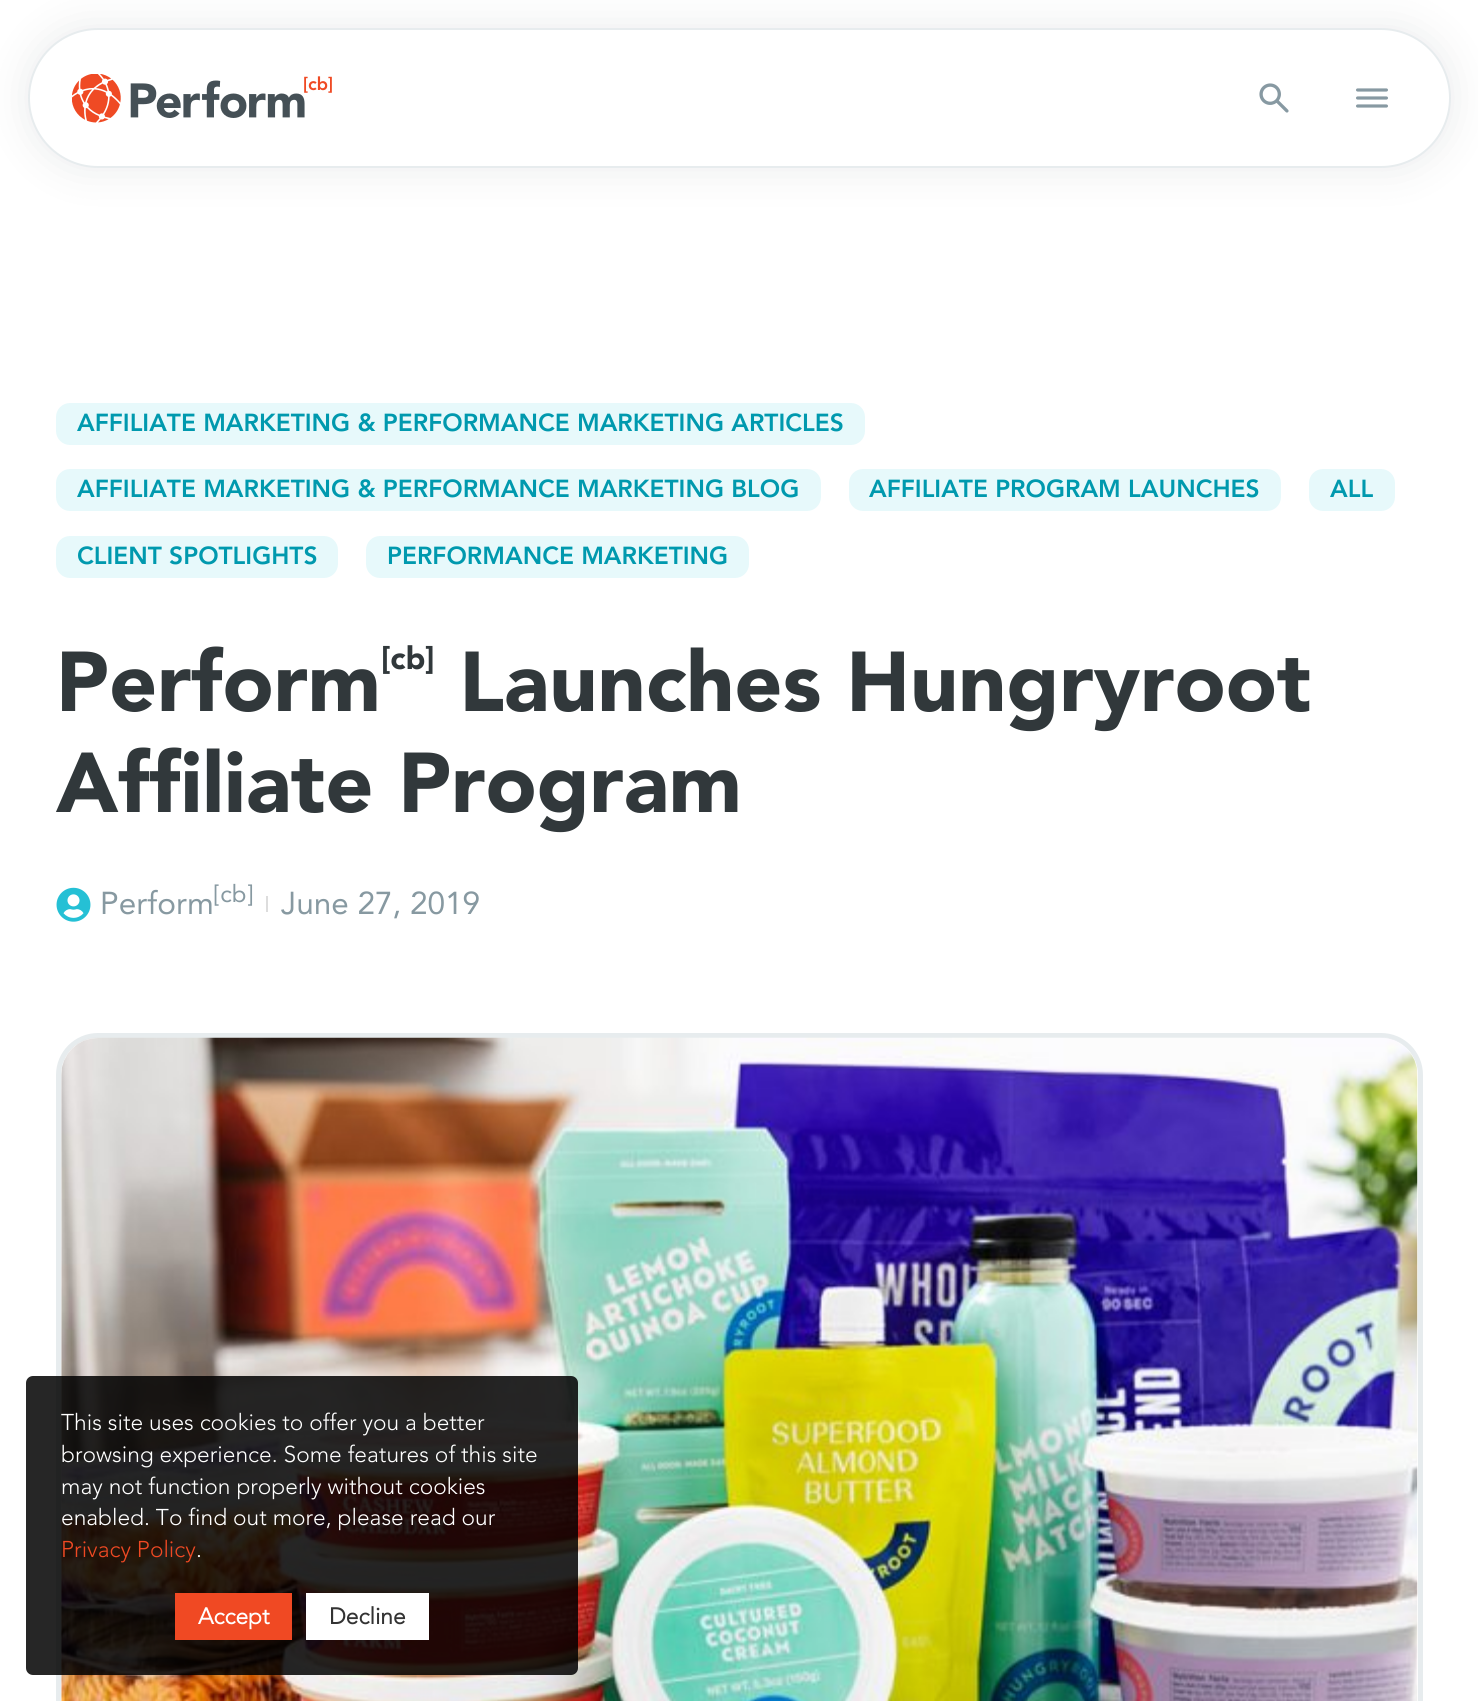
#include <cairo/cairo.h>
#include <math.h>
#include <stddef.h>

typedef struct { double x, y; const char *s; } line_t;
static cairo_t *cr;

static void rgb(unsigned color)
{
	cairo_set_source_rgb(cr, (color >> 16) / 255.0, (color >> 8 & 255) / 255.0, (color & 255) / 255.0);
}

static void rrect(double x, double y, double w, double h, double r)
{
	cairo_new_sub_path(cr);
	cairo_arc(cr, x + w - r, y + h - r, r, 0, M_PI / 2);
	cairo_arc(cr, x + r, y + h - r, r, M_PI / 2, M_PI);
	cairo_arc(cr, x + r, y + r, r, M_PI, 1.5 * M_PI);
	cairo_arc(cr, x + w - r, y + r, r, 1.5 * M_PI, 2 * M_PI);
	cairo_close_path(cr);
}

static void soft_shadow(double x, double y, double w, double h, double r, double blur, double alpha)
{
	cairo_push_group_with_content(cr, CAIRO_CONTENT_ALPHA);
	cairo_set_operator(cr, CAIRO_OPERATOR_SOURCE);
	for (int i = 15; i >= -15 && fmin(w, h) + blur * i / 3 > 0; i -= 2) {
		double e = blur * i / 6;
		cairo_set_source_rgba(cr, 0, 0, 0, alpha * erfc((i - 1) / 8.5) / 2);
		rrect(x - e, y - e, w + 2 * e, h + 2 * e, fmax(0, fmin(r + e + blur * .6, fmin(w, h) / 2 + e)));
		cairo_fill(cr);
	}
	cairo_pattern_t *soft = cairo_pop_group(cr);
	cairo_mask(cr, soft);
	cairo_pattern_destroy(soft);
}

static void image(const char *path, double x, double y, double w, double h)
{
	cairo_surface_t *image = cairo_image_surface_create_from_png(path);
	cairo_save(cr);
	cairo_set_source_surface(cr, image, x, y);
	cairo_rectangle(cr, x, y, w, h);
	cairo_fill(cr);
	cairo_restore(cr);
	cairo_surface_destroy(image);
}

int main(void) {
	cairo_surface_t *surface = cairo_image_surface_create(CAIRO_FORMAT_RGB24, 1478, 1701);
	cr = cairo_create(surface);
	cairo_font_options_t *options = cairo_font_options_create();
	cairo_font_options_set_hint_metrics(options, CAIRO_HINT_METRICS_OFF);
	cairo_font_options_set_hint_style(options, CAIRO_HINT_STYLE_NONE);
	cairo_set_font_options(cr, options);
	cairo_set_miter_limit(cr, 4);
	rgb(0xffffff);
	cairo_paint(cr);
	rgb(0x203236);
	soft_shadow(28, 28, 1423, 140, 70, 21, 0.1);
	rgb(0xffffff);
	rrect(29, 29, 1421, 138, 69);
	cairo_fill_preserve(cr);
	rgb(0xe7ecee);
	cairo_stroke(cr);
	image("img/1.png", 72, 74, 260, 49);
	image("img/2.png", 1259, 83, 30, 30);
	image("img/3.png", 1356, 88, 32, 20);
	rgb(0xe7f9fb);
	rrect(56, 403, 809, 42, 14);
	cairo_fill(cr);
	rrect(56, 469, 765, 42, 14);
	cairo_fill(cr);
	rrect(849, 469, 432, 42, 14);
	cairo_fill(cr);
	rrect(1309, 469, 86, 42, 14);
	cairo_fill(cr);
	rrect(56, 536, 282, 42, 14);
	cairo_fill(cr);
	rrect(366, 536, 383, 42, 14);
	cairo_fill(cr);
	image("img/4.png", 56, 887, 35, 35);
	rgb(0xdddddd);
	cairo_rectangle(cr, 266, 896, 2, 16);
	cairo_fill(cr);
	rrect(58.5, 1035.5, 1362, 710, 39.5);
	rgb(0xe7ecee);
	cairo_set_line_width(cr, 5);
	cairo_stroke(cr);
	image("img/5.png", 61, 1037, 1357, 664);
	cairo_set_source_rgba(cr, 0, 0, 0, 0.85);
	rrect(26, 1376, 552, 299, 7);
	cairo_fill(cr);
	rgb(0xf04923);
	cairo_rectangle(cr, 175, 1593, 117, 47);
	cairo_fill(cr);
	rgb(0xffffff);
	cairo_rectangle(cr, 306, 1593, 123, 47);
	cairo_fill(cr);
	cairo_select_font_face(cr, "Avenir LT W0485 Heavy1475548 Black", CAIRO_FONT_SLANT_NORMAL, CAIRO_FONT_WEIGHT_NORMAL);
	cairo_set_font_size(cr, 24.5);
	rgb(0x0099ae);
	{
		static const line_t items[] = {
			{77, 431, "AFFILIATE MARKETING & PERFORMANCE MARKETING ARTICLES"},
			{77, 497, "AFFILIATE MARKETING & PERFORMANCE MARKETING BLOG"},
			{869, 497, "AFFILIATE PROGRAM LAUNCHES"},
			{1330, 497, "ALL"},
			{77, 564, "CLIENT SPOTLIGHTS"},
			{387, 564, "PERFORMANCE MARKETING"},
		};
		for (size_t i = 0; i < sizeof items / sizeof *items; i++) {
			cairo_move_to(cr, items[i].x, items[i].y);
			cairo_show_text(cr, items[i].s);
		}
	}
	cairo_select_font_face(cr, "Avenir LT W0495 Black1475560 Black", CAIRO_FONT_SLANT_NORMAL, CAIRO_FONT_WEIGHT_NORMAL);
	cairo_set_font_size(cr, 84);
	rgb(0x31383b);
	cairo_move_to(cr, 56, 711);
	cairo_show_text(cr, "Perform");
	cairo_set_font_size(cr, 31.5);
	cairo_move_to(cr, 381, 669);
	cairo_show_text(cr, "[cb]");
	cairo_set_font_size(cr, 84);
	cairo_move_to(cr, 459, 711);
	cairo_show_text(cr, "Launches Hungryroot");
	cairo_move_to(cr, 56, 812);
	cairo_show_text(cr, "Affiliate Program");
	cairo_select_font_face(cr, "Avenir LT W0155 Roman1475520", CAIRO_FONT_SLANT_NORMAL, CAIRO_FONT_WEIGHT_NORMAL);
	cairo_set_font_size(cr, 31.5);
	rgb(0x8799a1);
	cairo_move_to(cr, 100, 914);
	cairo_show_text(cr, "Perform");
	cairo_set_font_size(cr, 24);
	cairo_move_to(cr, 214, 902);
	cairo_show_text(cr, "[cb]");
	cairo_set_font_size(cr, 31.5);
	cairo_move_to(cr, 281, 914);
	cairo_show_text(cr, "June 27, 2019");
	cairo_select_font_face(cr, "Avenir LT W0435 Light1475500 Light", CAIRO_FONT_SLANT_NORMAL, CAIRO_FONT_WEIGHT_NORMAL);
	cairo_set_font_size(cr, 22.75);
	rgb(0xffffff);
	{
		static const line_t items[] = {
			{61, 1430, "This site uses cookies to offer you a better"},
			{61, 1462, "browsing experience. Some features of this site"},
			{61, 1494, "may not function properly without cookies"},
			{61, 1525, "enabled. To find out more, please read our"},
		};
		for (size_t i = 0; i < sizeof items / sizeof *items; i++) {
			cairo_move_to(cr, items[i].x, items[i].y);
			cairo_show_text(cr, items[i].s);
		}
	}
	rgb(0xf04923);
	cairo_move_to(cr, 61, 1557);
	cairo_show_text(cr, "Privacy Policy");
	rgb(0xffffff);
	cairo_move_to(cr, 196, 1557);
	cairo_show_text(cr, ".");
	cairo_select_font_face(cr, "Avenir LT W0435 Light1475500", CAIRO_FONT_SLANT_NORMAL, CAIRO_FONT_WEIGHT_BOLD);
	cairo_move_to(cr, 198, 1624);
	cairo_show_text(cr, "Accept");
	rgb(0x333333);
	cairo_move_to(cr, 329, 1624);
	cairo_show_text(cr, "Decline");
	cairo_surface_write_to_png(surface, "page.png");
	cairo_font_options_destroy(options);
	cairo_destroy(cr);
	cairo_surface_destroy(surface);
	return 0;
}
